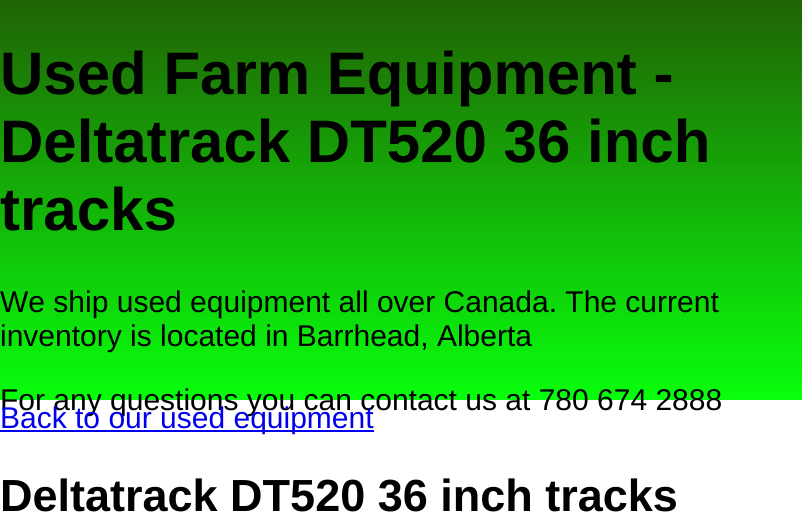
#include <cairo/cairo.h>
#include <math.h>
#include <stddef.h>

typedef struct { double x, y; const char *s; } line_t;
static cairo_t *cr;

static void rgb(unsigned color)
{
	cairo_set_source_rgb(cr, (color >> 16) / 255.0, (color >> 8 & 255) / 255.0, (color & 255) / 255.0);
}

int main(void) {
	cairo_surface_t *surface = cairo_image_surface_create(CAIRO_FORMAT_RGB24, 802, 516);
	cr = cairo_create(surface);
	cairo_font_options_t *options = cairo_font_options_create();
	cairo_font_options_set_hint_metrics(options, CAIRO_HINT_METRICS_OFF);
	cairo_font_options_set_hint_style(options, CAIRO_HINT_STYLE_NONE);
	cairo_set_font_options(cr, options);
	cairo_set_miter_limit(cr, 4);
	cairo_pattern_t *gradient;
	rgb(0xffffff);
	cairo_paint(cr);
	gradient = cairo_pattern_create_linear(401, 0, 401, 400);
	cairo_pattern_add_color_stop_rgba(gradient, 0, 0.125, 0.388, 0.016, 1);
	cairo_pattern_add_color_stop_rgba(gradient, 1, 0.031, 1, 0.047, 1);
	cairo_set_source(cr, gradient);
	cairo_pattern_destroy(gradient);
	cairo_rectangle(cr, 0, 0, 802, 400);
	cairo_fill(cr);
	rgb(0x0000ee);
	cairo_rectangle(cr, 0, 430, 374, 2);
	cairo_fill(cr);
	cairo_select_font_face(cr, "Liberation Sans", CAIRO_FONT_SLANT_NORMAL, CAIRO_FONT_WEIGHT_BOLD);
	cairo_set_font_size(cr, 60);
	rgb(0x000000);
	{
		static const line_t items[] = {
			{0, 94, "Used Farm Equipment -"},
			{0, 162, "Deltatrack DT520 36 inch"},
			{0, 230, "tracks"},
		};
		for (size_t i = 0; i < sizeof items / sizeof *items; i++) {
			cairo_move_to(cr, items[i].x, items[i].y);
			cairo_show_text(cr, items[i].s);
		}
	}
	cairo_select_font_face(cr, "Liberation Sans", CAIRO_FONT_SLANT_NORMAL, CAIRO_FONT_WEIGHT_NORMAL);
	cairo_set_font_size(cr, 30);
	{
		static const line_t items[] = {
			{0, 312, "We ship used equipment all over Canada. The current"},
			{0, 346, "inventory is located in Barrhead, Alberta"},
			{0, 410, "For any questions you can contact us at 780 674 2888"},
		};
		for (size_t i = 0; i < sizeof items / sizeof *items; i++) {
			cairo_move_to(cr, items[i].x, items[i].y);
			cairo_show_text(cr, items[i].s);
		}
	}
	rgb(0x0000ee);
	cairo_move_to(cr, 0, 428);
	cairo_show_text(cr, "Back to our used equipment");
	cairo_select_font_face(cr, "Liberation Sans", CAIRO_FONT_SLANT_NORMAL, CAIRO_FONT_WEIGHT_BOLD);
	cairo_set_font_size(cr, 45);
	rgb(0x000000);
	cairo_move_to(cr, 0, 511);
	cairo_show_text(cr, "Deltatrack DT520 36 inch tracks");
	cairo_surface_write_to_png(surface, "page.png");
	cairo_font_options_destroy(options);
	cairo_destroy(cr);
	cairo_surface_destroy(surface);
	return 0;
}
